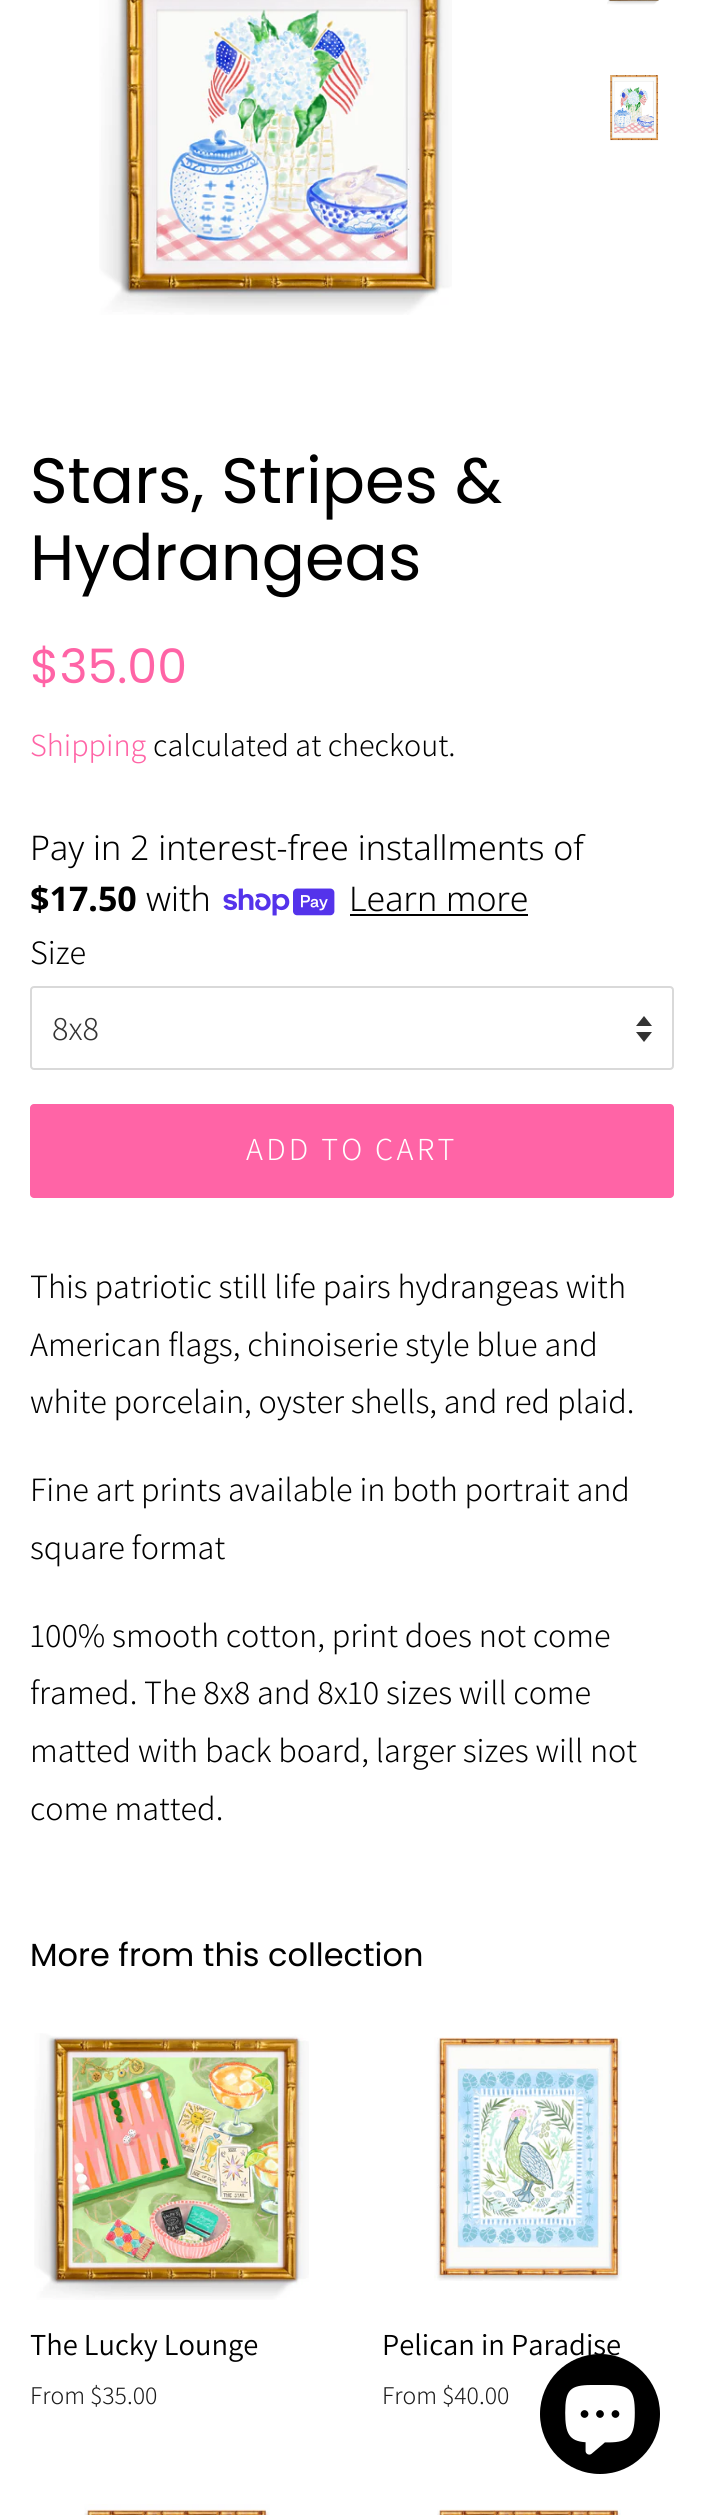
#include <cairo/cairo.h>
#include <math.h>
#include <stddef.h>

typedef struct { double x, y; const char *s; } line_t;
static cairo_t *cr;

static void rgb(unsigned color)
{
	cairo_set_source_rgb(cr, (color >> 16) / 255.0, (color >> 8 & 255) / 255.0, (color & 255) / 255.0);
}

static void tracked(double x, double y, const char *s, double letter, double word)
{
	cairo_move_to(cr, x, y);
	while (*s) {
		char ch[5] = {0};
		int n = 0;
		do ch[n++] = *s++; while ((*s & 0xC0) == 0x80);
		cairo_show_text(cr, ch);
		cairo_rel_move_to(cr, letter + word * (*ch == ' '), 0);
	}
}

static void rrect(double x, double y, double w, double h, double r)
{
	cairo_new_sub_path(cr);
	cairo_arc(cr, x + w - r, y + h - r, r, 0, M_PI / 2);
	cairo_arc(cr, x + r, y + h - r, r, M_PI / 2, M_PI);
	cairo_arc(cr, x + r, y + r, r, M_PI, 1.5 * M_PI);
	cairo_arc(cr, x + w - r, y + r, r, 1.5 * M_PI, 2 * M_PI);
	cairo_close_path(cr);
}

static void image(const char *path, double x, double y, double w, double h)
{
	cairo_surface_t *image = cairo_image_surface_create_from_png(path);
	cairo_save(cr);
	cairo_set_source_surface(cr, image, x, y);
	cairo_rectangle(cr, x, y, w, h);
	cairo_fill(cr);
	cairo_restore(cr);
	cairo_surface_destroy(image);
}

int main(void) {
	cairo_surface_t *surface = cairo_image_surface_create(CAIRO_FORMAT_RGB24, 704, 2515);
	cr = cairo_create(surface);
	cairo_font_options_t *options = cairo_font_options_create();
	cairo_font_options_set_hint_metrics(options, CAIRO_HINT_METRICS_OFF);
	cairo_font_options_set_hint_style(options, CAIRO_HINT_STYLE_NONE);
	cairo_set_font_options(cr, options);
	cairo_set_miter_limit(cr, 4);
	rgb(0xffffff);
	cairo_paint(cr);
	image("img/1.png", 99, 0, 353, 315);
	image("img/2.png", 607, 0, 52, 5);
	image("img/3.png", 610, 75, 49, 66);
	image("img/4.png", 223, 888, 112, 28);
	rgb(0x000000);
	cairo_rectangle(cr, 350, 914, 178, 2);
	cairo_fill(cr);
	rgb(0x333333);
	cairo_new_path(cr);
	cairo_move_to(cr, 636, 1032);
	cairo_line_to(cr, 644, 1042);
	cairo_line_to(cr, 652, 1032);
	cairo_close_path(cr);
	cairo_move_to(cr, 644, 1016);
	cairo_line_to(cr, 636, 1026);
	cairo_line_to(cr, 652, 1026);
	cairo_close_path(cr);
	cairo_fill(cr);
	rrect(31, 987, 642, 82, 3);
	rgb(0xd9d9d9);
	cairo_stroke(cr);
	rgb(0xff64a6);
	rrect(30, 1104, 644, 94, 4);
	cairo_fill(cr);
	image("img/5.png", 34, 2033, 275, 267);
	image("img/6.png", 434, 2037, 188, 244);
	image("img/7.png", 84, 2504, 186, 11);
	image("img/8.png", 437, 2509, 184, 6);
	rgb(0x000000);
	cairo_arc(cr, 600, 2414, 60, 0, 2 * M_PI);
	cairo_fill(cr);
	image("img/9.png", 565, 2385, 70, 70);
	cairo_select_font_face(cr, "Poppins", CAIRO_FONT_SLANT_NORMAL, CAIRO_FONT_WEIGHT_NORMAL);
	cairo_set_font_size(cr, 64);
	cairo_move_to(cr, 30, 503);
	cairo_show_text(cr, "Stars, Stripes &");
	cairo_move_to(cr, 30, 580);
	cairo_show_text(cr, "Hydrangeas");
	cairo_set_font_size(cr, 47.5);
	rgb(0xff64a6);
	cairo_move_to(cr, 30, 683);
	cairo_show_text(cr, "$35.00");
	cairo_select_font_face(cr, "Assistant Light", CAIRO_FONT_SLANT_NORMAL, CAIRO_FONT_WEIGHT_NORMAL);
	cairo_set_font_size(cr, 32);
	cairo_move_to(cr, 30, 756);
	cairo_show_text(cr, "Shipping");
	rgb(0x000000);
	cairo_move_to(cr, 153, 756);
	cairo_show_text(cr, "calculated at checkout.");
	cairo_select_font_face(cr, "Noto Sans Light", CAIRO_FONT_SLANT_NORMAL, CAIRO_FONT_WEIGHT_NORMAL);
	cairo_set_font_size(cr, 34);
	cairo_move_to(cr, 30, 860);
	cairo_show_text(cr, "Pay in 2 interest-free installments of");
	cairo_select_font_face(cr, "Noto Sans", CAIRO_FONT_SLANT_NORMAL, CAIRO_FONT_WEIGHT_BOLD);
	cairo_move_to(cr, 30, 911);
	cairo_show_text(cr, "$17.50");
	cairo_select_font_face(cr, "Noto Sans Light", CAIRO_FONT_SLANT_NORMAL, CAIRO_FONT_WEIGHT_NORMAL);
	cairo_move_to(cr, 146, 911);
	cairo_show_text(cr, "with");
	cairo_move_to(cr, 349, 911);
	cairo_show_text(cr, "Learn more");
	cairo_select_font_face(cr, "Assistant Light", CAIRO_FONT_SLANT_NORMAL, CAIRO_FONT_WEIGHT_NORMAL);
	cairo_move_to(cr, 30, 964);
	cairo_show_text(cr, "Size");
	rgb(0x333333);
	cairo_move_to(cr, 52, 1040);
	cairo_show_text(cr, "8x8");
	cairo_set_font_size(cr, 32);
	rgb(0xffffff);
	tracked(246, 1160, "ADD TO CART", 3.25, 0);
	cairo_set_font_size(cr, 34);
	rgb(0x000000);
	{
		static const line_t items[] = {
			{30, 1298, "This patriotic still life pairs hydrangeas with"},
			{30, 1356, "American flags, chinoiserie style blue and"},
			{30, 1413, "white porcelain, oyster shells, and red plaid."},
			{30, 1501, "Fine art prints available in both portrait and"},
			{30, 1559, "square format"},
			{30, 1647, "100% smooth cotton, print does not come"},
			{30, 1704, "framed. The 8x8 and 8x10 sizes will come"},
			{30, 1762, "matted with back board, larger sizes will not"},
			{30, 1820, "come matted."},
		};
		for (size_t i = 0; i < sizeof items / sizeof *items; i++) {
			cairo_move_to(cr, items[i].x, items[i].y);
			cairo_show_text(cr, items[i].s);
		}
	}
	cairo_select_font_face(cr, "Poppins", CAIRO_FONT_SLANT_NORMAL, CAIRO_FONT_WEIGHT_NORMAL);
	cairo_set_font_size(cr, 32);
	cairo_move_to(cr, 30, 1966);
	cairo_show_text(cr, "More from this collection");
	cairo_select_font_face(cr, "Assistant", CAIRO_FONT_SLANT_NORMAL, CAIRO_FONT_WEIGHT_NORMAL);
	cairo_set_font_size(cr, 30.5);
	cairo_move_to(cr, 30, 2355);
	cairo_show_text(cr, "The Lucky Lounge");
	cairo_select_font_face(cr, "Assistant Light", CAIRO_FONT_SLANT_NORMAL, CAIRO_FONT_WEIGHT_NORMAL);
	cairo_set_font_size(cr, 25.5);
	rgb(0x1a1a1a);
	cairo_move_to(cr, 30, 2404);
	cairo_show_text(cr, "From $35.00");
	cairo_select_font_face(cr, "Assistant", CAIRO_FONT_SLANT_NORMAL, CAIRO_FONT_WEIGHT_NORMAL);
	cairo_set_font_size(cr, 30.5);
	rgb(0x000000);
	cairo_move_to(cr, 382, 2355);
	cairo_show_text(cr, "Pelican in Paradise");
	cairo_select_font_face(cr, "Assistant Light", CAIRO_FONT_SLANT_NORMAL, CAIRO_FONT_WEIGHT_NORMAL);
	cairo_set_font_size(cr, 25.5);
	rgb(0x1a1a1a);
	cairo_move_to(cr, 382, 2404);
	cairo_show_text(cr, "From $40.00");
	cairo_surface_write_to_png(surface, "page.png");
	cairo_font_options_destroy(options);
	cairo_destroy(cr);
	cairo_surface_destroy(surface);
	return 0;
}
